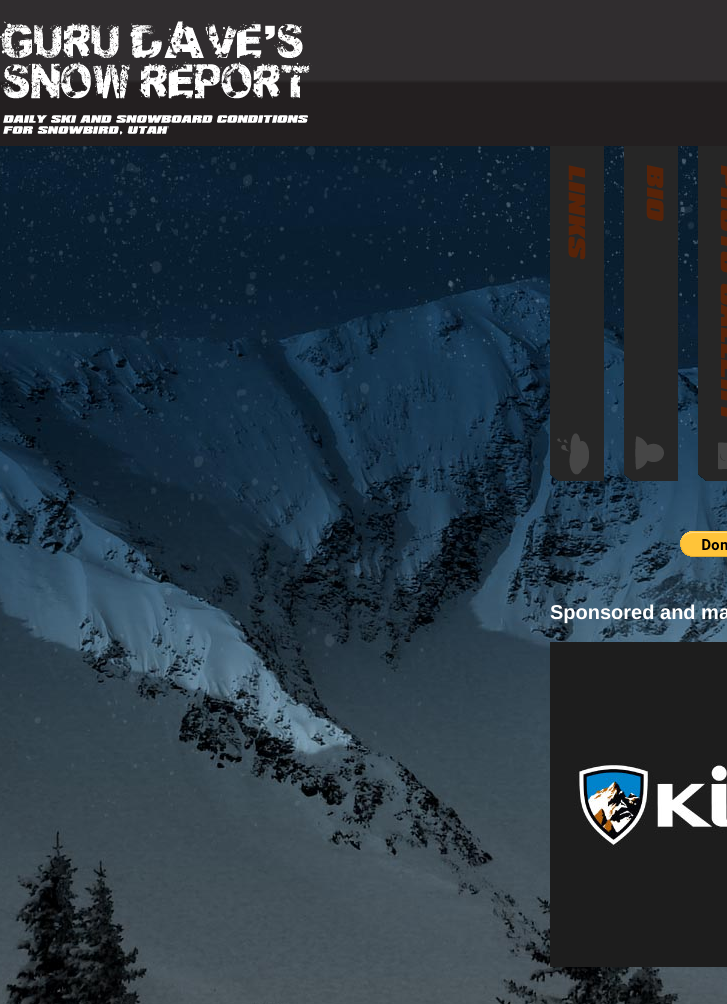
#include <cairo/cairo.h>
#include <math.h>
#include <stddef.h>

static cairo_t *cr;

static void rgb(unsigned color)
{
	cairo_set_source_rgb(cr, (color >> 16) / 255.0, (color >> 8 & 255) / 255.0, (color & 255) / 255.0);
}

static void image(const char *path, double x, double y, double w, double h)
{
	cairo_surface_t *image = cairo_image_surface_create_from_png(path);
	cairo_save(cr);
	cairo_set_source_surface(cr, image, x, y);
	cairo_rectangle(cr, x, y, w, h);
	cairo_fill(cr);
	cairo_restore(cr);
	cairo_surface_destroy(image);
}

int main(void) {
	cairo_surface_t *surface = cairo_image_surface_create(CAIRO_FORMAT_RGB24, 727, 1004);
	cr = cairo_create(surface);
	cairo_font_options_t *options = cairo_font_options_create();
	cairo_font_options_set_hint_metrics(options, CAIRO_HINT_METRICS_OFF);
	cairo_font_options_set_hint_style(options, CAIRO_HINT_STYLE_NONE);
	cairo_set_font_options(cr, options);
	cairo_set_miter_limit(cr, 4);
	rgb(0xffffff);
	cairo_paint(cr);
	image("img/1.png", 0, 0, 727, 146);
	image("img/2.png", 0, 21, 312, 114);
	image("img/3.png", 0, 146, 727, 858);
	image("img/4.png", 550, 146, 54, 335);
	image("img/5.png", 624, 146, 54, 335);
	image("img/6.png", 698, 146, 29, 335);
	image("img/7.png", 680, 531, 47, 26);
	image("img/8.png", 550, 642, 177, 325);
	cairo_select_font_face(cr, "Liberation Sans", CAIRO_FONT_SLANT_NORMAL, CAIRO_FONT_WEIGHT_BOLD);
	cairo_set_font_size(cr, 20);
	rgb(0xffffff);
	cairo_move_to(cr, 550, 619);
	cairo_show_text(cr, "Sponsored and ma");
	cairo_surface_write_to_png(surface, "page.png");
	cairo_font_options_destroy(options);
	cairo_destroy(cr);
	cairo_surface_destroy(surface);
	return 0;
}
